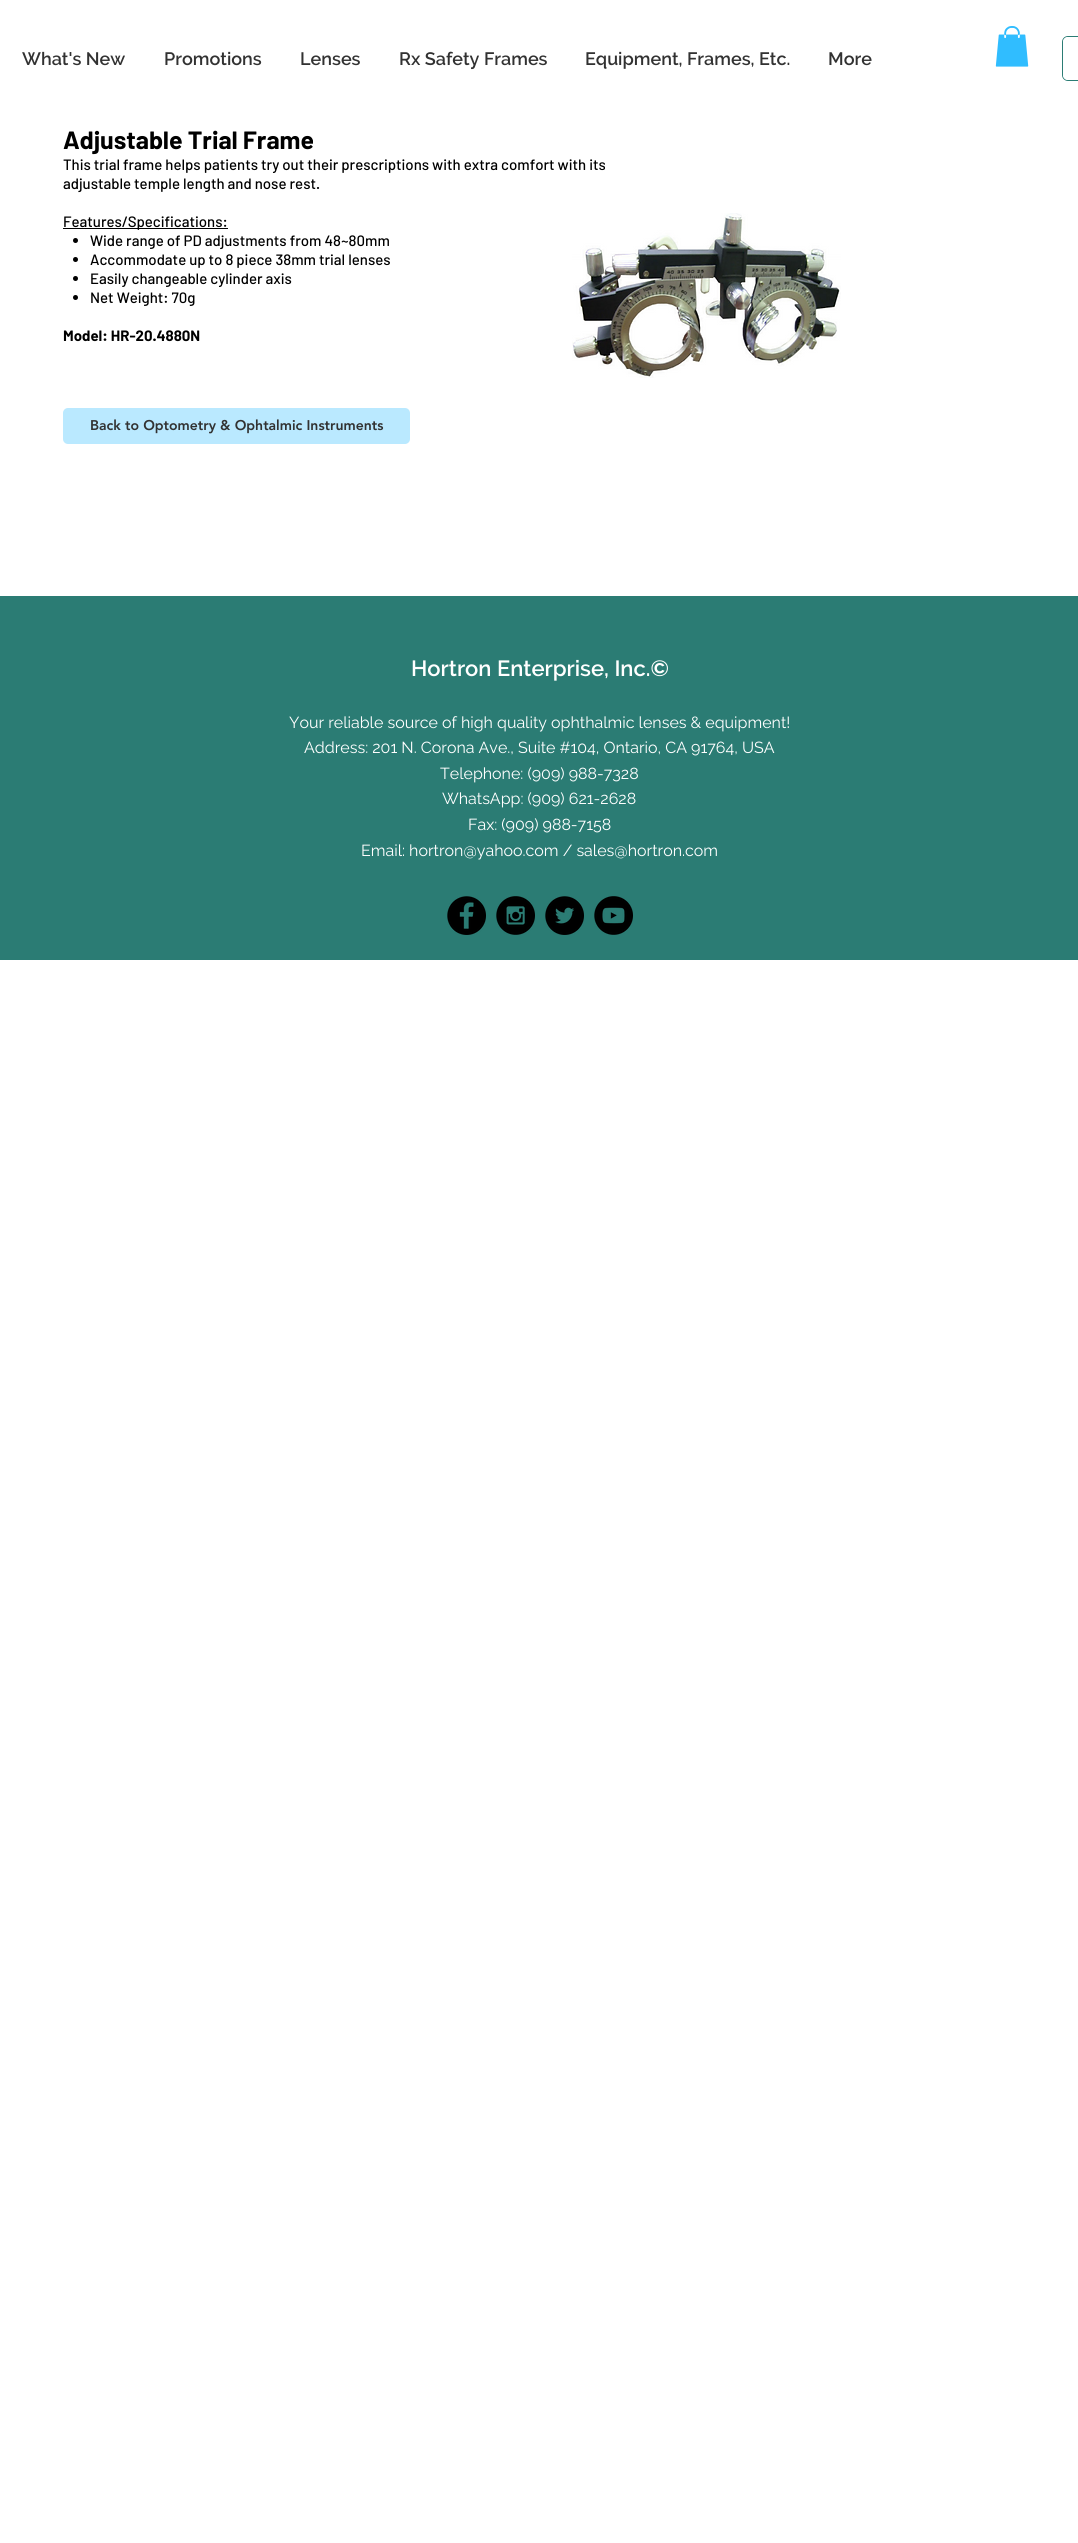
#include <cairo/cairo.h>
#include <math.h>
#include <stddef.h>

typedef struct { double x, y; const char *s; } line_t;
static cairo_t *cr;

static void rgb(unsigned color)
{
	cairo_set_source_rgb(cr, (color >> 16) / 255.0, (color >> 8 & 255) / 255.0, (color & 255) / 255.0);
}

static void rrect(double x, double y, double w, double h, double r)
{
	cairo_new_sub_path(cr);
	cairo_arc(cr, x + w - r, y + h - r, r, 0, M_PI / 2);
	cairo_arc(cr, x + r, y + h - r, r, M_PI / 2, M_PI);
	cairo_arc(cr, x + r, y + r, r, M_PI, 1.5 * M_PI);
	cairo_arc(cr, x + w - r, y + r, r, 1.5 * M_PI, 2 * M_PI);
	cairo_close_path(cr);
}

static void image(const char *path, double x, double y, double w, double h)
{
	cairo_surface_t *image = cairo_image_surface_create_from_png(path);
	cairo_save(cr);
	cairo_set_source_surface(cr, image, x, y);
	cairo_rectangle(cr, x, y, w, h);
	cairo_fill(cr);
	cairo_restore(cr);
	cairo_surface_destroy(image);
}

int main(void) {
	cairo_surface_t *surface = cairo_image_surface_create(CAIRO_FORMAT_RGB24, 1078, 2543);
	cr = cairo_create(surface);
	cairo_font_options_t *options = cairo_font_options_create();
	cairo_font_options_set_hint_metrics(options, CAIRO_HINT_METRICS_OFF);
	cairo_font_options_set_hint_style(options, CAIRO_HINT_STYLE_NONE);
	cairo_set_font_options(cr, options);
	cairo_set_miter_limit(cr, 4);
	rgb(0xffffff);
	cairo_paint(cr);
	image("img/1.png", 995, 26, 34, 41);
	rrect(1062.5, 36.5, 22, 44, 5.5);
	rgb(0x2b7c74);
	cairo_set_line_width(cr, 1);
	cairo_stroke(cr);
	rgb(0xffffff);
	rrect(1063, 37, 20, 43, 5);
	cairo_fill(cr);
	rgb(0x000000);
	cairo_rectangle(cr, 63, 228, 165, 1);
	cairo_fill(cr);
	cairo_arc(cr, 75.5, 240.5, 2.5, 0, 2 * M_PI);
	cairo_fill(cr);
	cairo_arc(cr, 75.5, 259.5, 2.5, 0, 2 * M_PI);
	cairo_fill(cr);
	cairo_arc(cr, 75.5, 278.5, 2.5, 0, 2 * M_PI);
	cairo_fill(cr);
	cairo_arc(cr, 75.5, 297.5, 2.5, 0, 2 * M_PI);
	cairo_fill(cr);
	image("img/2.png", 572, 213, 269, 165);
	rgb(0xbae9ff);
	rrect(63, 408, 347, 36, 5);
	cairo_fill(cr);
	rgb(0x2b7c74);
	cairo_rectangle(cr, 0, 596, 1078, 364);
	cairo_fill(cr);
	image("img/3.png", 447, 896, 39, 39);
	image("img/4.png", 496, 896, 39, 39);
	image("img/5.png", 545, 896, 39, 39);
	image("img/6.png", 594, 896, 39, 39);
	cairo_select_font_face(cr, "Raleway SemiBold", CAIRO_FONT_SLANT_NORMAL, CAIRO_FONT_WEIGHT_NORMAL);
	cairo_set_font_size(cr, 18);
	rgb(0x323232);
	{
		static const line_t items[] = {
			{22, 65, "What's New"},
			{164, 65, "Promotions"},
			{300, 65, "Lenses"},
			{399, 65, "Rx Safety Frames"},
			{585, 65, "Equipment, Frames, Etc."},
			{828, 65, "More"},
		};
		for (size_t i = 0; i < sizeof items / sizeof *items; i++) {
			cairo_move_to(cr, items[i].x, items[i].y);
			cairo_show_text(cr, items[i].s);
		}
	}
	cairo_select_font_face(cr, "Barlow", CAIRO_FONT_SLANT_NORMAL, CAIRO_FONT_WEIGHT_BOLD);
	cairo_set_font_size(cr, 25);
	rgb(0x000000);
	cairo_move_to(cr, 63, 149);
	cairo_show_text(cr, "Adjustable Trial Frame");
	cairo_select_font_face(cr, "Barlow Medium", CAIRO_FONT_SLANT_NORMAL, CAIRO_FONT_WEIGHT_NORMAL);
	cairo_set_font_size(cr, 15);
	{
		static const line_t items[] = {
			{63, 170, "This trial frame helps patients try out their prescriptions with extra comfort with its"},
			{63, 189, "adjustable temple length and nose rest."},
			{63, 227, "Features/Specifications:"},
			{90, 246, "Wide range of PD adjustments from 48~80mm"},
			{90, 265, "Accommodate up to 8 piece 38mm trial lenses"},
			{90, 284, "Easily changeable cylinder axis"},
			{90, 303, "Net Weight: 70g"},
		};
		for (size_t i = 0; i < sizeof items / sizeof *items; i++) {
			cairo_move_to(cr, items[i].x, items[i].y);
			cairo_show_text(cr, items[i].s);
		}
	}
	cairo_select_font_face(cr, "Barlow", CAIRO_FONT_SLANT_NORMAL, CAIRO_FONT_WEIGHT_BOLD);
	cairo_move_to(cr, 63, 341);
	cairo_show_text(cr, "Model: HR-20.4880N");
	cairo_select_font_face(cr, "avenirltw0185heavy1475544 Black", CAIRO_FONT_SLANT_NORMAL, CAIRO_FONT_WEIGHT_NORMAL);
	cairo_set_font_size(cr, 14);
	rgb(0x323232);
	cairo_move_to(cr, 90, 430);
	cairo_show_text(cr, "Back to Optometry & Ophtalmic Instruments");
	cairo_select_font_face(cr, "Raleway SemiBold", CAIRO_FONT_SLANT_NORMAL, CAIRO_FONT_WEIGHT_NORMAL);
	cairo_set_font_size(cr, 22);
	rgb(0xffffff);
	cairo_move_to(cr, 411, 676);
	cairo_show_text(cr, "Hortron Enterprise, Inc.©");
	cairo_select_font_face(cr, "Raleway", CAIRO_FONT_SLANT_NORMAL, CAIRO_FONT_WEIGHT_NORMAL);
	cairo_set_font_size(cr, 16);
	{
		static const line_t items[] = {
			{289, 728, "Your reliable source of high quality ophthalmic lenses & equipment!"},
			{304, 753, "Address: 201 N. Corona Ave., Suite #104, Ontario, CA 91764, USA"},
			{440, 779, "Telephone: (909) 988-7328"},
			{442, 804, "WhatsApp: (909) 621-2628"},
			{468, 830, "Fax: (909) 988-7158"},
			{361, 856, "Email: hortron@yahoo.com / sales@hortron.com"},
		};
		for (size_t i = 0; i < sizeof items / sizeof *items; i++) {
			cairo_move_to(cr, items[i].x, items[i].y);
			cairo_show_text(cr, items[i].s);
		}
	}
	cairo_surface_write_to_png(surface, "page.png");
	cairo_font_options_destroy(options);
	cairo_destroy(cr);
	cairo_surface_destroy(surface);
	return 0;
}
